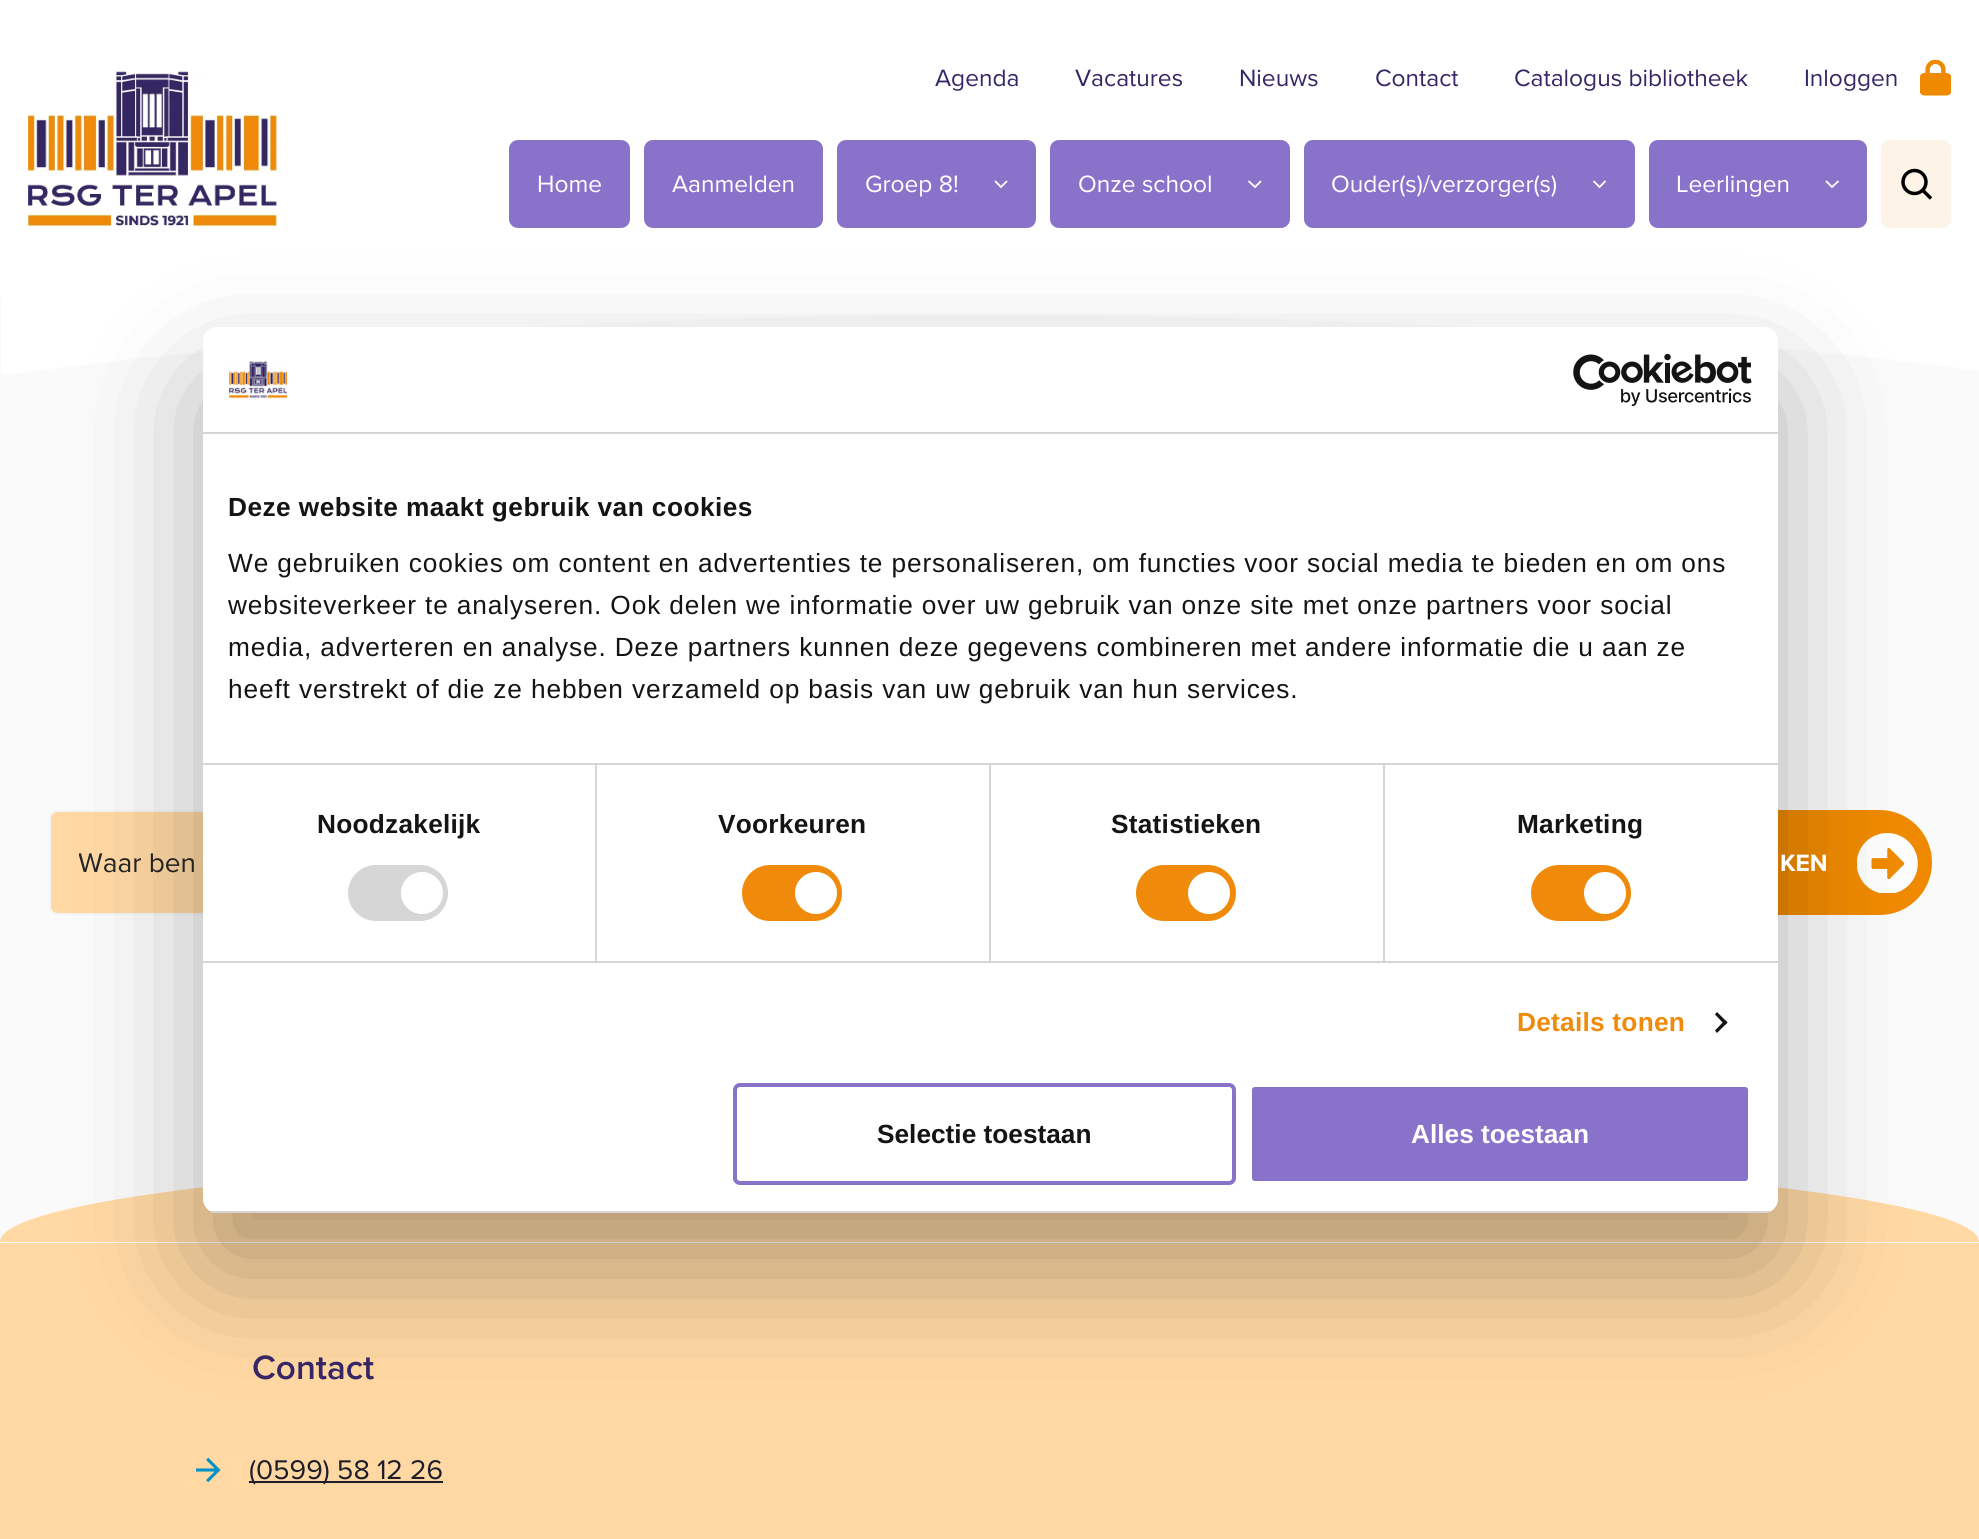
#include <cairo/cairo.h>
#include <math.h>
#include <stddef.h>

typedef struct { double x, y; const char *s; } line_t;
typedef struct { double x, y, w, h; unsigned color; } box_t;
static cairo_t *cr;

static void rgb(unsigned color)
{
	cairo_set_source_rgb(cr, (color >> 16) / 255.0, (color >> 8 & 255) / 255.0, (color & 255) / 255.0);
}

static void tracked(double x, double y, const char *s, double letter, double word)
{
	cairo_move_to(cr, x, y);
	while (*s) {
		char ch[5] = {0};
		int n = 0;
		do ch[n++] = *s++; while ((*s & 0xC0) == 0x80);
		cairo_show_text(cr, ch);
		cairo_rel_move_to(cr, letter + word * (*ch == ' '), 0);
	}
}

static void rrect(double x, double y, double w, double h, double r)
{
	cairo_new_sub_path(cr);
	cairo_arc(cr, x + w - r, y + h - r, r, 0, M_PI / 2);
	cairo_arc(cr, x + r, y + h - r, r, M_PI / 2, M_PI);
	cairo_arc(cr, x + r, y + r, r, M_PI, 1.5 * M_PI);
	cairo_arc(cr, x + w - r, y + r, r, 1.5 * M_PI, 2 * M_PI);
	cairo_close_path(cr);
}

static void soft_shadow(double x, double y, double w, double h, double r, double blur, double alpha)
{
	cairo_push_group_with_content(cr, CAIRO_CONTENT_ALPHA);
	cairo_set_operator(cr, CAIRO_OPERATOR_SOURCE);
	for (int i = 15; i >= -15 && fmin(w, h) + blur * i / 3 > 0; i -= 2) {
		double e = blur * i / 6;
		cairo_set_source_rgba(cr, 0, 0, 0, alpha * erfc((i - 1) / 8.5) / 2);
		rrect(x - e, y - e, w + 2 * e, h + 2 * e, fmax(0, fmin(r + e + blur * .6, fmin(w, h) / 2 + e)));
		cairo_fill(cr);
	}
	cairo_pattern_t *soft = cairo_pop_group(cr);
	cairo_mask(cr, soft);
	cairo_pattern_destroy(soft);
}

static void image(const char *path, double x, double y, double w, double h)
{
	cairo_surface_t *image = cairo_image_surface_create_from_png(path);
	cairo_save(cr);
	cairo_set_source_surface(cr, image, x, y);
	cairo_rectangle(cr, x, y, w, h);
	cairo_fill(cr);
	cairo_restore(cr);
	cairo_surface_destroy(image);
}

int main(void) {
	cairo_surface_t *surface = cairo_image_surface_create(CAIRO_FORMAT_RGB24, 1979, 1539);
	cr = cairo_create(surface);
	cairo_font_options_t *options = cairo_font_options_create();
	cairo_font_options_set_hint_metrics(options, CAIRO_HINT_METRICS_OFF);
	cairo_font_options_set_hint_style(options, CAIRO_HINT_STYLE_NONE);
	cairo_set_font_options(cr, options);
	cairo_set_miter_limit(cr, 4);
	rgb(0xfafafa);
	cairo_paint(cr);
	rgb(0xffffff);
	cairo_rectangle(cr, 0, 0, 1979, 298);
	cairo_fill(cr);
	image("img/1.png", 28, 71, 249, 155);
	image("img/2.png", 1920, 60, 31, 36);
	rgb(0x8973ca);
	rrect(509, 140, 121, 88, 9);
	cairo_fill(cr);
	rrect(644, 140, 179, 88, 9);
	cairo_fill(cr);
	rrect(837, 140, 199, 88, 9);
	cairo_fill(cr);
	cairo_new_path(cr);
	cairo_move_to(cr, 995, 181);
	cairo_line_to(cr, 1001, 187);
	cairo_line_to(cr, 1007, 181);
	rgb(0xffffff);
	cairo_set_line_width(cr, 1.8);
	cairo_stroke(cr);
	rgb(0x8973ca);
	rrect(1050, 140, 240, 88, 9);
	cairo_fill(cr);
	cairo_new_path(cr);
	cairo_move_to(cr, 1248.5, 181);
	cairo_line_to(cr, 1255, 187);
	cairo_line_to(cr, 1261, 181);
	rgb(0xffffff);
	cairo_stroke(cr);
	rgb(0x8973ca);
	rrect(1304, 140, 331, 88, 9);
	cairo_fill(cr);
	cairo_new_path(cr);
	cairo_move_to(cr, 1593.5, 181);
	cairo_line_to(cr, 1599.5, 187);
	cairo_line_to(cr, 1605.5, 181);
	rgb(0xffffff);
	cairo_stroke(cr);
	rgb(0x8973ca);
	rrect(1649, 140, 218, 88, 9);
	cairo_fill(cr);
	cairo_new_path(cr);
	cairo_move_to(cr, 1826, 181);
	cairo_line_to(cr, 1832, 187);
	cairo_line_to(cr, 1838.5, 181);
	rgb(0xffffff);
	cairo_stroke(cr);
	rgb(0xfdf3e6);
	rrect(1881, 140, 70, 88, 9);
	cairo_fill(cr);
	cairo_arc(cr, 1914.5, 182, 11.5, 0, 2 * M_PI);
	rgb(0x000000);
	cairo_set_line_width(cr, 3.5);
	cairo_stroke(cr);
	cairo_new_path(cr);
	cairo_move_to(cr, 1931, 198.5);
	cairo_line_to(cr, 1922.5, 190);
	cairo_stroke(cr);
	image("img/3.png", 1, 298, 1978, 77);
	rgb(0xffd8a3);
	cairo_new_path(cr);
	cairo_move_to(cr, 58, 811);
	cairo_line_to(cr, 1704, 811);
	cairo_line_to(cr, 1704, 914);
	cairo_line_to(cr, 58, 914);
	cairo_curve_to(cr, 53.5, 914, 50, 910.5, 50, 906);
	cairo_line_to(cr, 50, 819);
	cairo_curve_to(cr, 50, 814.5, 53.5, 811, 58, 811);
	cairo_close_path(cr);
	cairo_fill_preserve(cr);
	rgb(0xf4f4f4);
	cairo_set_line_width(cr, 2);
	cairo_stroke(cr);
	rgb(0xef8a00);
	cairo_new_path(cr);
	cairo_move_to(cr, 1705, 810);
	cairo_line_to(cr, 1879.5, 810);
	cairo_curve_to(cr, 1908.5, 810, 1932, 833.5, 1932, 862.5);
	cairo_curve_to(cr, 1932, 891.5, 1908.5, 915, 1879.5, 915);
	cairo_line_to(cr, 1705, 915);
	cairo_close_path(cr);
	cairo_fill(cr);
	image("img/4.png", 1857, 833, 61, 60);
	rgb(0xffd8a3);
	cairo_new_path(cr);
	cairo_move_to(cr, 990, 1152);
	cairo_curve_to(cr, 1536, 1152, 1979, 1192, 1979, 1242);
	cairo_line_to(cr, 0, 1242);
	cairo_curve_to(cr, 0, 1192, 443, 1152, 990, 1152);
	cairo_close_path(cr);
	cairo_fill(cr);
	cairo_rectangle(cr, 0, 1243, 1979, 296);
	cairo_fill(cr);
	image("img/5.png", 196, 1458, 25, 24);
	rgb(0x1e1e2a);
	cairo_rectangle(cr, 249, 1481, 194, 2);
	cairo_fill(cr);
	rgb(0x000000);
	soft_shadow(203, 383, 1575, 886, 14, 59.5, 0.3);
	rgb(0xffffff);
	rrect(203, 327, 1575, 886, 14);
	cairo_fill(cr);
	rgb(0xd6d6d6);
	cairo_rectangle(cr, 203, 432, 1575, 2);
	cairo_fill(cr);
	image("img/6.png", 229, 361, 59, 38);
	image("img/7.png", 1573, 354, 179, 52);
	{
		static const box_t items[] = {
			{203, 763, 1575, 2, 0xd6d6d6},
			{203, 961, 1575, 2, 0xd6d6d6},
			{595, 765, 2, 196, 0xd6d6d6},
		};
		for (size_t i = 0; i < sizeof items / sizeof *items; i++) {
			rgb(items[i].color);
			cairo_rectangle(cr, items[i].x, items[i].y, items[i].w, items[i].h);
			cairo_fill(cr);
		}
	}
	rrect(348, 865, 100, 56, 28);
	cairo_fill(cr);
	rgb(0xffffff);
	cairo_arc(cr, 422, 893, 21, 0, 2 * M_PI);
	cairo_fill(cr);
	rgb(0xd6d6d6);
	cairo_rectangle(cr, 989, 765, 2, 196);
	cairo_fill(cr);
	rgb(0xf08a0a);
	rrect(742, 865, 100, 56, 28);
	cairo_fill(cr);
	rgb(0xffffff);
	cairo_arc(cr, 816, 893, 21, 0, 2 * M_PI);
	cairo_fill(cr);
	rgb(0xd6d6d6);
	cairo_rectangle(cr, 1383, 765, 2, 196);
	cairo_fill(cr);
	rgb(0xf08a0a);
	rrect(1136, 865, 100, 56, 28);
	cairo_fill(cr);
	rgb(0xffffff);
	cairo_arc(cr, 1209, 893, 21, 0, 2 * M_PI);
	cairo_fill(cr);
	rgb(0xf08a0a);
	rrect(1531, 865, 100, 56, 28);
	cairo_fill(cr);
	rgb(0xffffff);
	cairo_arc(cr, 1605, 893, 21, 0, 2 * M_PI);
	cairo_fill(cr);
	rgb(0x141414);
	cairo_new_path(cr);
	cairo_move_to(cr, 1717, 1012);
	cairo_line_to(cr, 1727.5, 1022.5);
	cairo_line_to(cr, 1725, 1025);
	cairo_line_to(cr, 1715, 1014.5);
	cairo_close_path(cr);
	cairo_fill(cr);
	cairo_new_path(cr);
	cairo_move_to(cr, 1725, 1020);
	cairo_line_to(cr, 1727.5, 1022.5);
	cairo_line_to(cr, 1717, 1033);
	cairo_line_to(cr, 1715, 1030.5);
	cairo_close_path(cr);
	cairo_fill(cr);
	cairo_save(cr);
	rrect(203, 327, 1575, 886, 14);
	cairo_clip(cr);
	rgb(0xd6d6d6);
	cairo_rectangle(cr, 203, 1211, 1575, 2);
	cairo_fill(cr);
	cairo_restore(cr);
	rrect(735, 1085, 499, 98, 5);
	rgb(0x8973ca);
	cairo_set_line_width(cr, 4);
	cairo_stroke(cr);
	rrect(1250, 1085, 500, 98, 5);
	cairo_fill_preserve(cr);
	rgb(0xffffff);
	cairo_stroke(cr);
	cairo_select_font_face(cr, "Proxima Nova", CAIRO_FONT_SLANT_NORMAL, CAIRO_FONT_WEIGHT_NORMAL);
	cairo_set_font_size(cr, 24.5);
	rgb(0x362665);
	{
		static const line_t items[] = {
			{935, 86, "Agenda"},
			{1075, 86, "Vacatures"},
			{1239, 86, "Nieuws"},
			{1375, 86, "Contact"},
			{1514, 86, "Catalogus bibliotheek"},
			{1804, 86, "Inloggen"},
		};
		for (size_t i = 0; i < sizeof items / sizeof *items; i++) {
			cairo_move_to(cr, items[i].x, items[i].y);
			cairo_show_text(cr, items[i].s);
		}
	}
	rgb(0xffffff);
	{
		static const line_t items[] = {
			{537, 192, "Home"},
			{672, 192, "Aanmelden"},
			{865, 192, "Groep 8!"},
			{1078, 192, "Onze school"},
			{1331, 192, "Ouder(s)/verzorger(s)"},
			{1676, 192, "Leerlingen"},
		};
		for (size_t i = 0; i < sizeof items / sizeof *items; i++) {
			cairo_move_to(cr, items[i].x, items[i].y);
			cairo_show_text(cr, items[i].s);
		}
	}
	cairo_save(cr);
	cairo_rectangle(cr, 79, 842, 1570, 40);
	cairo_clip(cr);
	cairo_set_font_size(cr, 28);
	rgb(0x242424);
	cairo_move_to(cr, 78, 872);
	cairo_show_text(cr, "Waar ben");
	cairo_restore(cr);
	cairo_select_font_face(cr, "Proxima Nova", CAIRO_FONT_SLANT_NORMAL, CAIRO_FONT_WEIGHT_BOLD);
	cairo_move_to(cr, 1780, 871);
	cairo_show_text(cr, "KEN");
	cairo_select_font_face(cr, "Proxima Nova SemiBold", CAIRO_FONT_SLANT_NORMAL, CAIRO_FONT_WEIGHT_NORMAL);
	cairo_set_font_size(cr, 35);
	rgb(0x362665);
	cairo_move_to(cr, 252, 1379);
	cairo_show_text(cr, "Contact");
	cairo_select_font_face(cr, "Proxima Nova", CAIRO_FONT_SLANT_NORMAL, CAIRO_FONT_WEIGHT_NORMAL);
	cairo_set_font_size(cr, 28);
	rgb(0x1e1e2a);
	cairo_move_to(cr, 249, 1479);
	cairo_show_text(cr, "(0599) 58 12 26");
	cairo_select_font_face(cr, "Liberation Sans", CAIRO_FONT_SLANT_NORMAL, CAIRO_FONT_WEIGHT_BOLD);
	cairo_set_font_size(cr, 26.25);
	rgb(0x141414);
	tracked(228, 516, "Deze website maakt gebruik van cookies", 0.45, 0);
	cairo_select_font_face(cr, "Liberation Sans", CAIRO_FONT_SLANT_NORMAL, CAIRO_FONT_WEIGHT_NORMAL);
	{
		static const line_t items[] = {
			{228, 572, "We gebruiken cookies om content en advertenties te personaliseren, om functies voor social media te bieden en om ons"},
			{228, 614, "websiteverkeer te analyseren. Ook delen we informatie over uw gebruik van onze site met onze partners voor social"},
			{228, 656, "media, adverteren en analyse. Deze partners kunnen deze gegevens combineren met andere informatie die u aan ze"},
			{228, 698, "heeft verstrekt of die ze hebben verzameld op basis van uw gebruik van hun services."},
		};
		for (size_t i = 0; i < sizeof items / sizeof *items; i++) {
			tracked(items[i].x, items[i].y, items[i].s, 0.88, 0);
		}
	}
	cairo_select_font_face(cr, "Liberation Sans", CAIRO_FONT_SLANT_NORMAL, CAIRO_FONT_WEIGHT_BOLD);
	{
		static const line_t items[] = {
			{317, 833, "Noodzakelijk"},
			{718, 833, "Voorkeuren"},
			{1111, 833, "Statistieken"},
			{1517, 833, "Marketing"},
		};
		for (size_t i = 0; i < sizeof items / sizeof *items; i++) {
			tracked(items[i].x, items[i].y, items[i].s, 0.25, 0);
		}
	}
	rgb(0xf08a0a);
	tracked(1517, 1031, "Details tonen", 0.25, 0);
	rgb(0x141414);
	cairo_move_to(cr, 877, 1143);
	cairo_show_text(cr, "Selectie toestaan");
	rgb(0xffffff);
	cairo_move_to(cr, 1411, 1143);
	cairo_show_text(cr, "Alles toestaan");
	cairo_surface_write_to_png(surface, "page.png");
	cairo_font_options_destroy(options);
	cairo_destroy(cr);
	cairo_surface_destroy(surface);
	return 0;
}
